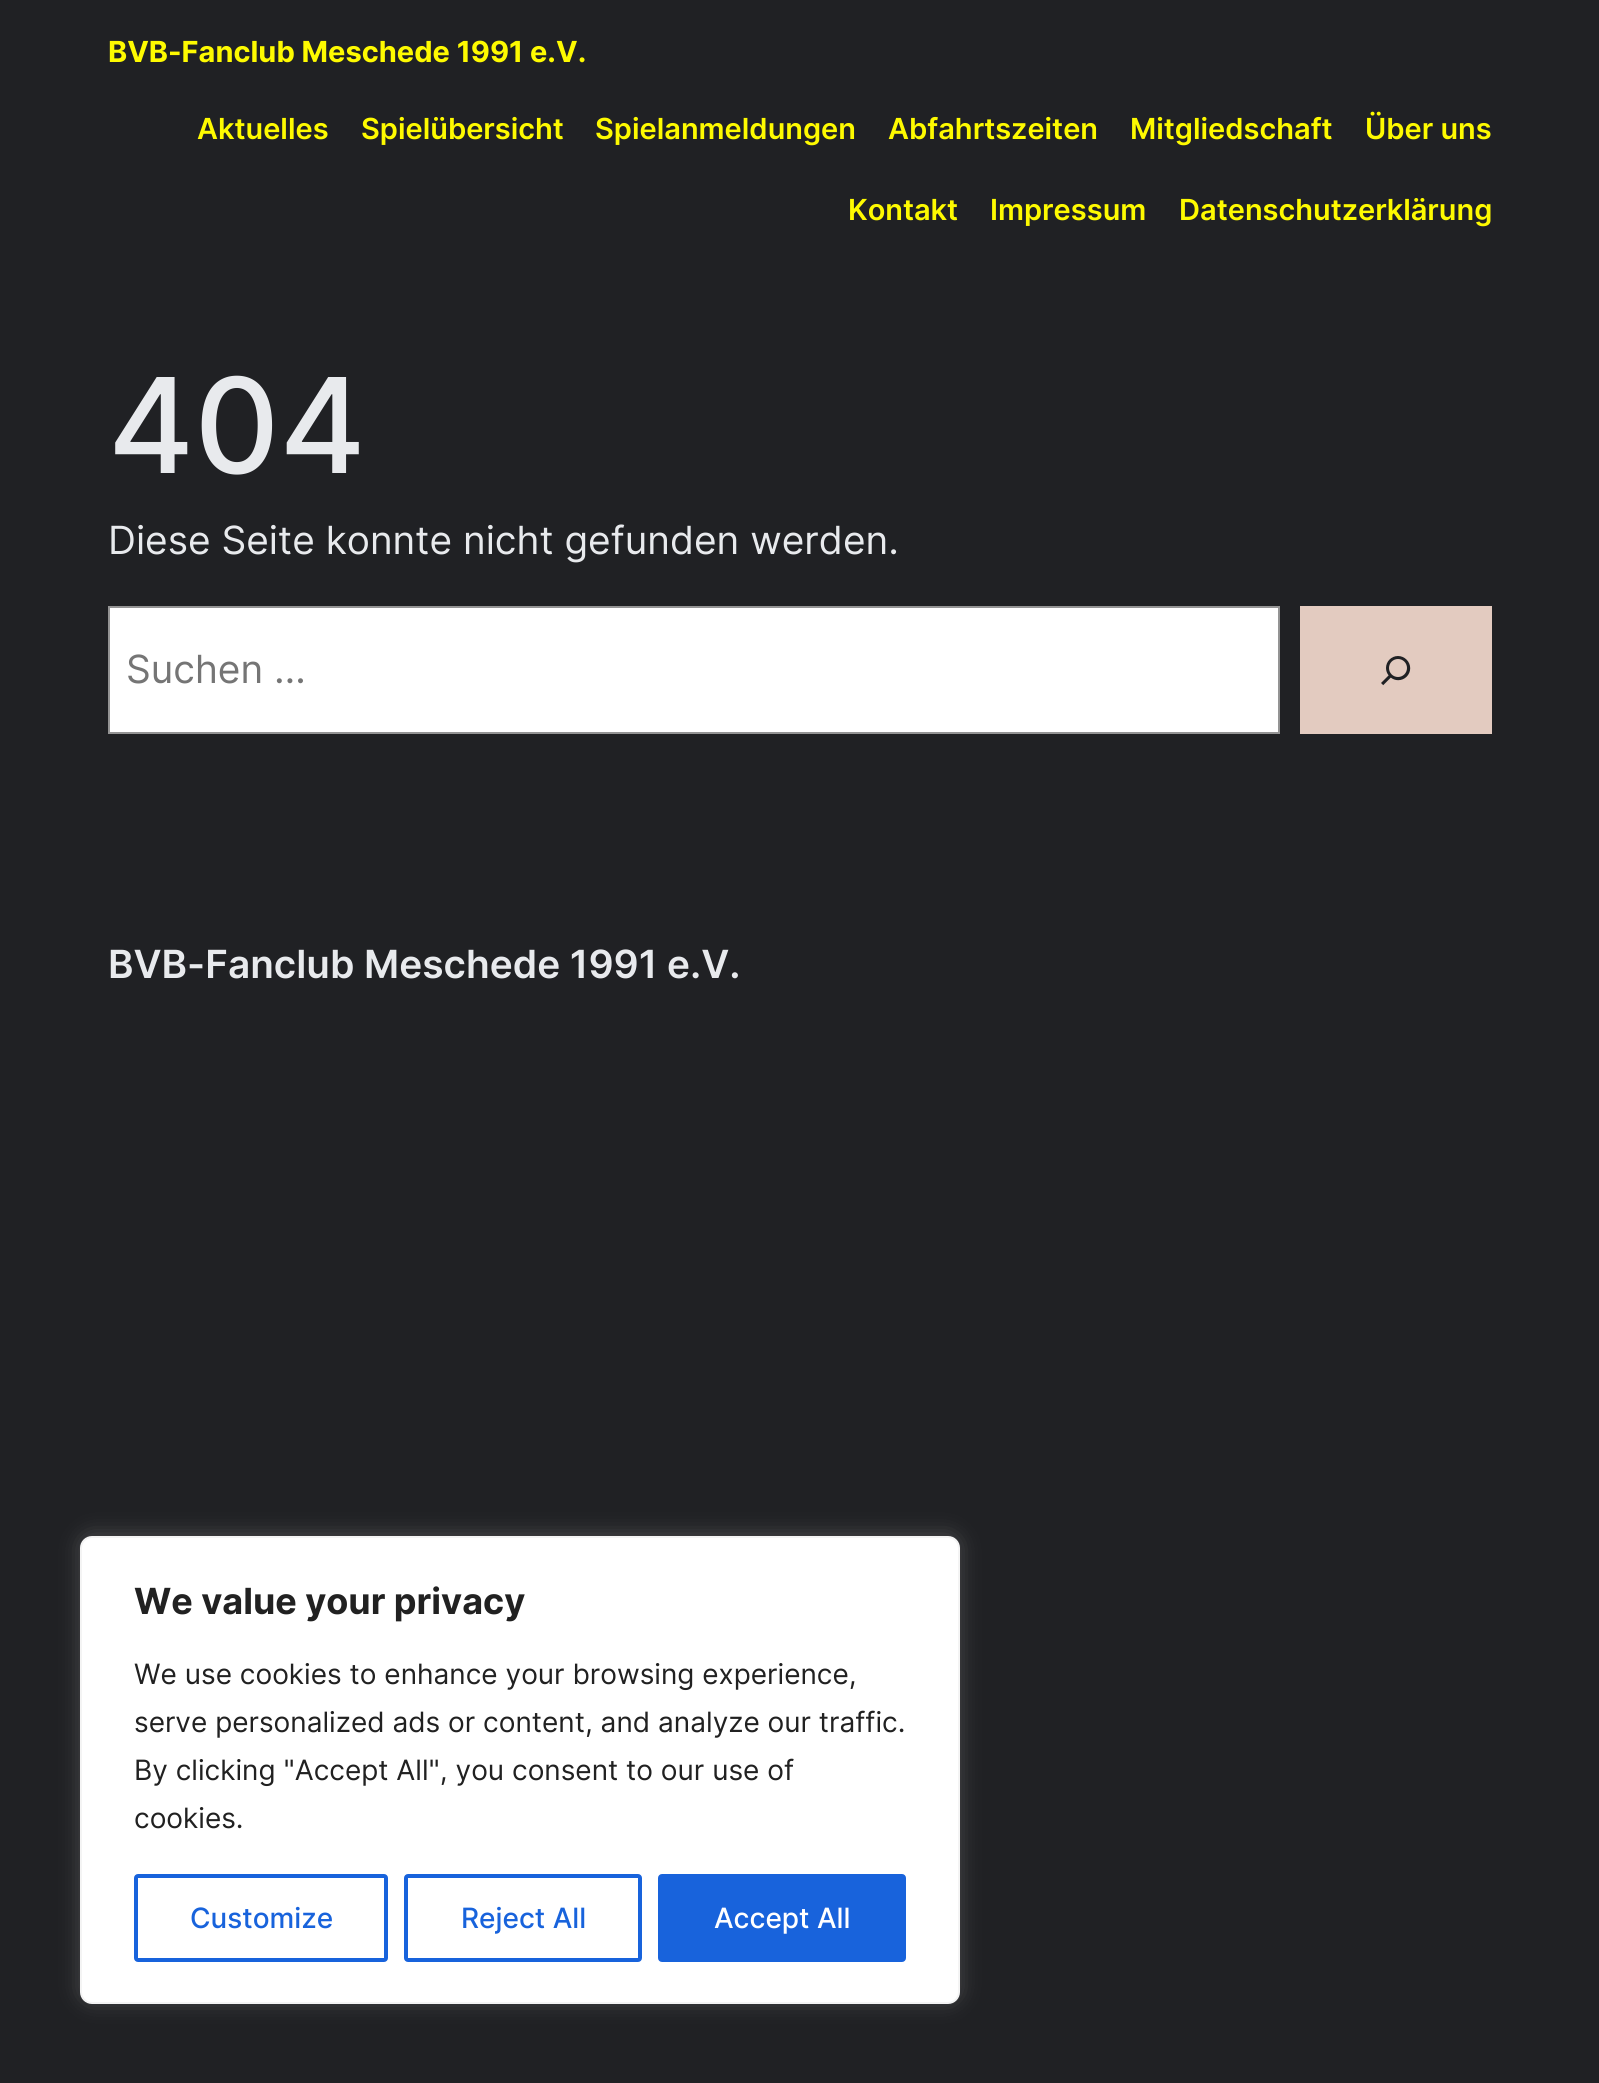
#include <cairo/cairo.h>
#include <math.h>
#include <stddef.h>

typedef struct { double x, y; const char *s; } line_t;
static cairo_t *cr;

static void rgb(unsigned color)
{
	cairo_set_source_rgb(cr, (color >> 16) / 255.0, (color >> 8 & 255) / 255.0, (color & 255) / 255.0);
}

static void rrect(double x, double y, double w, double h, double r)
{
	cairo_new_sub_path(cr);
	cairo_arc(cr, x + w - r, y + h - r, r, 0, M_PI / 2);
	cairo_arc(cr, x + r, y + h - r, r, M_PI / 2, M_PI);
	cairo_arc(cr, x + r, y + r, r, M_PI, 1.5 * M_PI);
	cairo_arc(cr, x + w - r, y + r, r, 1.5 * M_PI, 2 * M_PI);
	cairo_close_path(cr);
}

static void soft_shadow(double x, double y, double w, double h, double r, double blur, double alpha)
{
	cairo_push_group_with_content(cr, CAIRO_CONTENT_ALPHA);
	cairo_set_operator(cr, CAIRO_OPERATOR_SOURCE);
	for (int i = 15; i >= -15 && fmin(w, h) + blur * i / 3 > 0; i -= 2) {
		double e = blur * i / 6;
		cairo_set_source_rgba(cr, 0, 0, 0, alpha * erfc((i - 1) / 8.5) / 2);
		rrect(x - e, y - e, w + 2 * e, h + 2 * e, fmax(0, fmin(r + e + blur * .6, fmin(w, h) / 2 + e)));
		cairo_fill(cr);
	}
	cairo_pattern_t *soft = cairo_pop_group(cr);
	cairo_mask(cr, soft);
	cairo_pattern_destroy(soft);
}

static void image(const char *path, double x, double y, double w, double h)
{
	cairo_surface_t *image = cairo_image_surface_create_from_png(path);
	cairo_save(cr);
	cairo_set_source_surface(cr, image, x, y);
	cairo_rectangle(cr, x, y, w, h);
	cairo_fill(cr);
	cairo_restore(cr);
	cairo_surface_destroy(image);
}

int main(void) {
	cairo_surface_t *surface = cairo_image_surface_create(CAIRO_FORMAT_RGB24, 1599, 2083);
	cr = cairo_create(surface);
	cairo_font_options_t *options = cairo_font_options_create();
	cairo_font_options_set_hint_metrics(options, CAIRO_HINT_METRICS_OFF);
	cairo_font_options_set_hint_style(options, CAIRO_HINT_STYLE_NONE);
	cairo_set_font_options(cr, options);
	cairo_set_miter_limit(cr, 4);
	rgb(0x202124);
	cairo_paint(cr);
	rgb(0xffffff);
	cairo_rectangle(cr, 109, 607, 1170, 126);
	cairo_fill_preserve(cr);
	rgb(0x949494);
	cairo_stroke(cr);
	rgb(0xe3cbc0);
	cairo_rectangle(cr, 1300, 606, 192, 128);
	cairo_fill(cr);
	image("img/1.png", 1381, 656, 30, 30);
	rgb(0xacabab);
	soft_shadow(80, 1534, 880, 468, 12, 10, 0.3);
	rgb(0xffffff);
	rrect(81, 1537, 878, 466, 11);
	cairo_fill_preserve(cr);
	rgb(0xf4f4f4);
	cairo_stroke(cr);
	rrect(136, 1876, 250, 84, 2);
	rgb(0x1863dc);
	cairo_set_line_width(cr, 4);
	cairo_stroke(cr);
	rrect(406, 1876, 234, 84, 2);
	cairo_stroke(cr);
	rrect(660, 1876, 244, 84, 2);
	cairo_fill_preserve(cr);
	cairo_stroke(cr);
	cairo_select_font_face(cr, "Inter", CAIRO_FONT_SLANT_NORMAL, CAIRO_FONT_WEIGHT_BOLD);
	cairo_set_font_size(cr, 29);
	rgb(0xfefa00);
	cairo_move_to(cr, 108, 62);
	cairo_show_text(cr, "BVB-Fanclub Meschede 1991 e.V.");
	cairo_select_font_face(cr, "Inter SemiBold", CAIRO_FONT_SLANT_NORMAL, CAIRO_FONT_WEIGHT_NORMAL);
	{
		static const line_t items[] = {
			{197, 139, "Aktuelles"},
			{361, 139, "Spielübersicht"},
			{595, 139, "Spielanmeldungen"},
			{888, 139, "Abfahrtszeiten"},
			{1130, 139, "Mitgliedschaft"},
			{1365, 139, "Über uns"},
			{848, 220, "Kontakt"},
			{990, 220, "Impressum"},
			{1179, 220, "Datenschutzerklärung"},
		};
		for (size_t i = 0; i < sizeof items / sizeof *items; i++) {
			cairo_move_to(cr, items[i].x, items[i].y);
			cairo_show_text(cr, items[i].s);
		}
	}
	cairo_select_font_face(cr, "Inter Medium", CAIRO_FONT_SLANT_NORMAL, CAIRO_FONT_WEIGHT_NORMAL);
	cairo_set_font_size(cr, 132);
	rgb(0xe8eaed);
	cairo_move_to(cr, 108, 473);
	cairo_show_text(cr, "404");
	cairo_select_font_face(cr, "Inter", CAIRO_FONT_SLANT_NORMAL, CAIRO_FONT_WEIGHT_NORMAL);
	cairo_set_font_size(cr, 38.8);
	cairo_move_to(cr, 108, 554);
	cairo_show_text(cr, "Diese Seite konnte nicht gefunden werden.");
	rgb(0x757575);
	cairo_move_to(cr, 126, 683);
	cairo_show_text(cr, "Suchen …");
	cairo_select_font_face(cr, "Inter SemiBold", CAIRO_FONT_SLANT_NORMAL, CAIRO_FONT_WEIGHT_NORMAL);
	rgb(0xe8eaed);
	cairo_move_to(cr, 108, 978);
	cairo_show_text(cr, "BVB-Fanclub Meschede 1991 e.V.");
	cairo_select_font_face(cr, "Inter", CAIRO_FONT_SLANT_NORMAL, CAIRO_FONT_WEIGHT_BOLD);
	cairo_set_font_size(cr, 36);
	rgb(0x212121);
	cairo_move_to(cr, 134, 1614);
	cairo_show_text(cr, "We value your privacy");
	cairo_select_font_face(cr, "Inter", CAIRO_FONT_SLANT_NORMAL, CAIRO_FONT_WEIGHT_NORMAL);
	cairo_set_font_size(cr, 28);
	{
		static const line_t items[] = {
			{134, 1684, "We use cookies to enhance your browsing experience,"},
			{134, 1732, "serve personalized ads or content, and analyze our traffic."},
			{134, 1780, "By clicking \"Accept All\", you consent to our use of"},
			{134, 1828, "cookies."},
		};
		for (size_t i = 0; i < sizeof items / sizeof *items; i++) {
			cairo_move_to(cr, items[i].x, items[i].y);
			cairo_show_text(cr, items[i].s);
		}
	}
	cairo_select_font_face(cr, "Inter Medium", CAIRO_FONT_SLANT_NORMAL, CAIRO_FONT_WEIGHT_NORMAL);
	rgb(0x1863dc);
	cairo_move_to(cr, 190, 1928);
	cairo_show_text(cr, "Customize");
	cairo_move_to(cr, 461, 1928);
	cairo_show_text(cr, "Reject All");
	rgb(0xffffff);
	cairo_move_to(cr, 714, 1928);
	cairo_show_text(cr, "Accept All");
	cairo_surface_write_to_png(surface, "page.png");
	cairo_font_options_destroy(options);
	cairo_destroy(cr);
	cairo_surface_destroy(surface);
	return 0;
}
